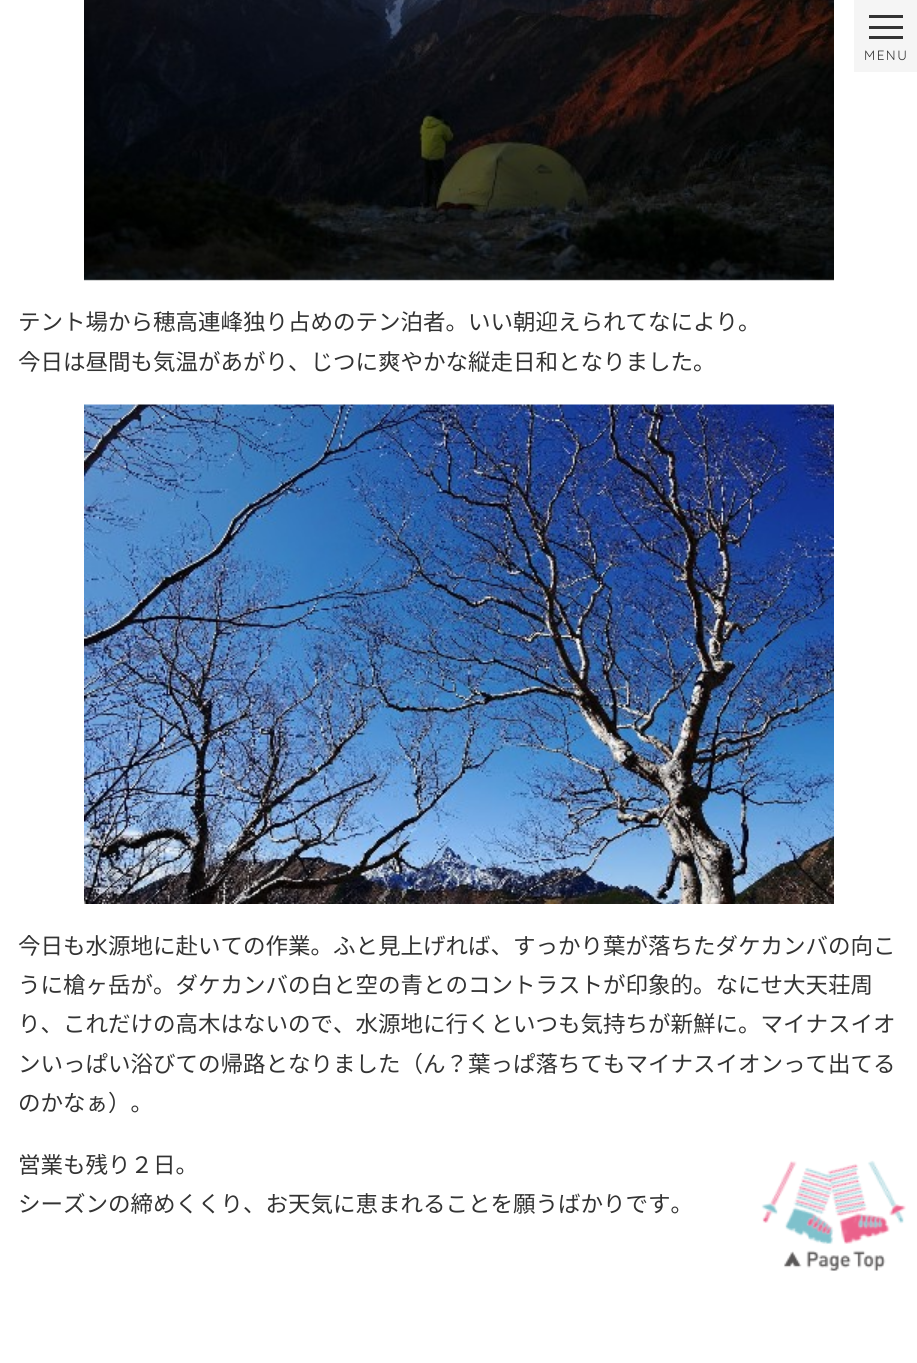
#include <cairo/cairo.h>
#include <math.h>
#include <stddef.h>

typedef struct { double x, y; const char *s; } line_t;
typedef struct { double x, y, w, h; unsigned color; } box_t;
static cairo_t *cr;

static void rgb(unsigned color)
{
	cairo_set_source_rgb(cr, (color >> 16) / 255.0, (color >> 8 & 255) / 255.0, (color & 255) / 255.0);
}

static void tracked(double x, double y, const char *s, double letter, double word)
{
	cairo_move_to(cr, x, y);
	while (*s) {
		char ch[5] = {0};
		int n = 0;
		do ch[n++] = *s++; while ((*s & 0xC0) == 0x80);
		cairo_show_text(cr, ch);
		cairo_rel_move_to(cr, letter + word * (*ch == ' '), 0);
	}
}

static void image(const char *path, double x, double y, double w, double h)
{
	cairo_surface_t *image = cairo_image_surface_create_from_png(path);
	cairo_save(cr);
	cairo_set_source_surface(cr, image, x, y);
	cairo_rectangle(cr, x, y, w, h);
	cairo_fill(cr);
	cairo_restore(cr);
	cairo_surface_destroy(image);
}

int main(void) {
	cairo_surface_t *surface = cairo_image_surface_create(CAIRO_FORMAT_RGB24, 917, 1363);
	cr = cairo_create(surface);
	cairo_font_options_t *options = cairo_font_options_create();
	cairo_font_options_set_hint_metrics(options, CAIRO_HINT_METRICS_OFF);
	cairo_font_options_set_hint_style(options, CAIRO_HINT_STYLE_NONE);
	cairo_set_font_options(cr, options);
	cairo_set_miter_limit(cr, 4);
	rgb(0xffffff);
	cairo_paint(cr);
	{
		static const box_t items[] = {
			{854, 0, 63, 72, 0xf5f5f5},
			{869, 15, 34, 3, 0x333333},
			{869, 26, 34, 3, 0x333333},
			{869, 36, 34, 3, 0x333333},
		};
		for (size_t i = 0; i < sizeof items / sizeof *items; i++) {
			rgb(items[i].color);
			cairo_rectangle(cr, items[i].x, items[i].y, items[i].w, items[i].h);
			cairo_fill(cr);
		}
	}
	image("img/1.png", 84, 0, 750, 281);
	image("img/2.png", 84, 404, 750, 500);
	image("img/3.png", 761, 1160, 145, 111);
	cairo_select_font_face(cr, "Quicksand", CAIRO_FONT_SLANT_NORMAL, CAIRO_FONT_WEIGHT_NORMAL);
	cairo_set_font_size(cr, 13.5);
	tracked(864, 60, "MENU", 1.5, 0);
	cairo_select_font_face(cr, "Noto Sans JP", CAIRO_FONT_SLANT_NORMAL, CAIRO_FONT_WEIGHT_NORMAL);
	cairo_set_font_size(cr, 22.5);
	{
		static const line_t items[] = {
			{18, 330, "テント場から穂高連峰独り占めのテン泊者。いい朝迎えられてなにより。"},
			{18, 370, "今日は昼間も気温があがり、じつに爽やかな縦走日和となりました。"},
			{18, 954, "今日も水源地に赴いての作業。ふと見上げれば、すっかり葉が落ちたダケカンバの向こ"},
			{18, 993, "うに槍ヶ岳が。ダケカンバの白と空の青とのコントラストが印象的。なにせ大天荘周"},
			{18, 1032, "り、これだけの高木はないので、水源地に行くといつも気持ちが新鮮に。マイナスイオ"},
			{18, 1072, "ンいっぱい浴びての帰路となりました（ん？葉っぱ落ちてもマイナスイオンって出てる"},
			{18, 1111, "のかなぁ）。"},
			{18, 1173, "営業も残り２日。"},
			{18, 1212, "シーズンの締めくくり、お天気に恵まれることを願うばかりです。"},
		};
		for (size_t i = 0; i < sizeof items / sizeof *items; i++) {
			cairo_move_to(cr, items[i].x, items[i].y);
			cairo_show_text(cr, items[i].s);
		}
	}
	cairo_surface_write_to_png(surface, "page.png");
	cairo_font_options_destroy(options);
	cairo_destroy(cr);
	cairo_surface_destroy(surface);
	return 0;
}
